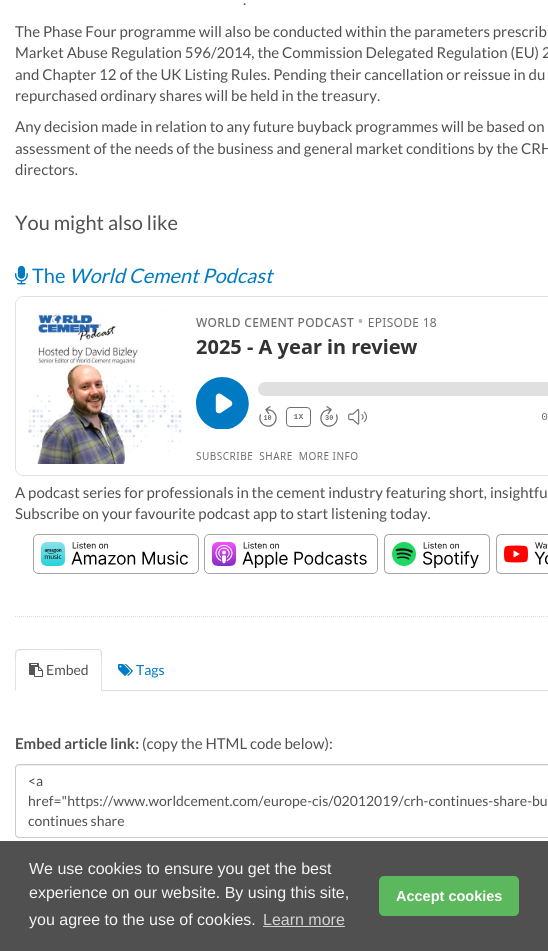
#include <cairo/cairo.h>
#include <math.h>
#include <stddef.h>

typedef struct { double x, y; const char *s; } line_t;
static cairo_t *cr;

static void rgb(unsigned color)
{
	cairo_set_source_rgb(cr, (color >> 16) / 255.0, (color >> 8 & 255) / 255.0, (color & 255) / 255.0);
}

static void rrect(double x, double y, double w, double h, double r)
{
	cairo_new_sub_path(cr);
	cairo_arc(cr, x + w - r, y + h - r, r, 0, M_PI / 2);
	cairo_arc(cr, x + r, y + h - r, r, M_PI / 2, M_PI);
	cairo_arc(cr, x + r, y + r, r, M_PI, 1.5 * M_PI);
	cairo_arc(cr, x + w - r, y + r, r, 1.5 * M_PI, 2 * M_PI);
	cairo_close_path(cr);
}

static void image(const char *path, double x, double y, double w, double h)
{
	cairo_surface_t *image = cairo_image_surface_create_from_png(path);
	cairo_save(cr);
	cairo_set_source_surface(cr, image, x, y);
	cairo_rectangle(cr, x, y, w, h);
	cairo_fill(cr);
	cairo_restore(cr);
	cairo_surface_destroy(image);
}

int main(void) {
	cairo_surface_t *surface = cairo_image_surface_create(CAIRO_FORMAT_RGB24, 548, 951);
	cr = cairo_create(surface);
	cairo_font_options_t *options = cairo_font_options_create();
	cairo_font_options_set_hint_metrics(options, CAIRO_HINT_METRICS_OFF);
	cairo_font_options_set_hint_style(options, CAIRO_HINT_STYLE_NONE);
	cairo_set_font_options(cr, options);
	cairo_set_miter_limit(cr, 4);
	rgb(0xffffff);
	cairo_paint(cr);
	image("img/1.png", 15, 265, 13, 20);
	image("img/2.png", 15, 296, 533, 180);
	image("img/3.png", 33, 534, 166, 40);
	image("img/4.png", 204, 534, 174, 40);
	image("img/5.png", 384, 534, 106, 40);
	image("img/6.png", 496, 534, 52, 40);
	cairo_new_path(cr);
	cairo_move_to(cr, 15, 616.5);
	cairo_line_to(cr, 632, 616.5);
	rgb(0xdddddd);
	cairo_set_line_width(cr, 1);
	cairo_set_dash(cr, (double[]){1, 1}, 2, 0);
	cairo_stroke(cr);
	cairo_rectangle(cr, 102, 690, 446, 1);
	cairo_fill(cr);
	cairo_new_path(cr);
	cairo_move_to(cr, 19, 649);
	cairo_line_to(cr, 16, 650);
	cairo_line_to(cr, 17, 651);
	cairo_curve_to(cr, 19, 649, 78, 650, 85, 650);
	cairo_line_to(cr, 98, 650);
	cairo_line_to(cr, 100, 651);
	cairo_line_to(cr, 101, 650);
	cairo_line_to(cr, 98, 649);
	cairo_close_path(cr);
	cairo_fill(cr);
	cairo_new_path(cr);
	cairo_move_to(cr, 102, 691);
	cairo_line_to(cr, 102, 653);
	cairo_curve_to(cr, 102, 652, 102, 651, 101, 650);
	cairo_line_to(cr, 100, 651);
	cairo_curve_to(cr, 102, 653, 101, 685, 101, 690);
	cairo_close_path(cr);
	cairo_fill(cr);
	cairo_new_path(cr);
	cairo_move_to(cr, 15, 691);
	cairo_line_to(cr, 16, 690);
	cairo_curve_to(cr, 16, 685, 15, 653, 17, 651);
	cairo_line_to(cr, 16, 650);
	cairo_line_to(cr, 15, 653);
	cairo_close_path(cr);
	cairo_fill(cr);
	image("img/7.png", 29, 663, 14, 14);
	image("img/8.png", 118, 664, 15, 12);
	rgb(0xececec);
	cairo_new_path(cr);
	cairo_move_to(cr, 19, 766);
	cairo_line_to(cr, 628, 766);
	cairo_curve_to(cr, 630, 766, 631, 767, 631, 769);
	cairo_line_to(cr, 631, 768);
	cairo_curve_to(cr, 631, 766, 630, 765, 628, 765);
	cairo_line_to(cr, 19, 765);
	cairo_curve_to(cr, 17, 765, 16, 766, 16, 768);
	cairo_line_to(cr, 16, 769);
	cairo_curve_to(cr, 16, 767, 17, 766, 19, 766);
	cairo_close_path(cr);
	cairo_fill(cr);
	rrect(15.5, 764.5, 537, 73, 3.5);
	rgb(0xcccccc);
	cairo_set_dash(cr, NULL, 0, 0);
	cairo_stroke(cr);
	rgb(0x505050);
	cairo_rectangle(cr, 0, 841, 548, 110);
	cairo_fill(cr);
	rgb(0xd3d3d3);
	cairo_rectangle(cr, 263, 926, 82, 1);
	cairo_fill(cr);
	rgb(0x5cb85c);
	rrect(379, 876, 140, 40, 5);
	cairo_fill(cr);
	cairo_select_font_face(cr, "Lato", CAIRO_FONT_SLANT_NORMAL, CAIRO_FONT_WEIGHT_NORMAL);
	cairo_set_font_size(cr, 15);
	rgb(0x505050);
	{
		static const line_t items[] = {
			{243, 5, "."},
			{15, 37, "The Phase Four programme will also be conducted within the parameters prescrib"},
			{15, 58, "Market Abuse Regulation 596/2014, the Commission Delegated Regulation (EU) 2"},
			{15, 80, "and Chapter 12 of the UK Listing Rules. Pending their cancellation or reissue in du"},
			{15, 101, "repurchased ordinary shares will be held in the treasury."},
			{15, 132, "Any decision made in relation to any future buyback programmes will be based on"},
			{15, 154, "assessment of the needs of the business and general market conditions by the CRH"},
			{15, 175, "directors."},
		};
		for (size_t i = 0; i < sizeof items / sizeof *items; i++) {
			cairo_move_to(cr, items[i].x, items[i].y);
			cairo_show_text(cr, items[i].s);
		}
	}
	cairo_set_font_size(cr, 20);
	cairo_move_to(cr, 15, 230);
	cairo_show_text(cr, "You might also like");
	rgb(0x007ac3);
	cairo_move_to(cr, 32, 283);
	cairo_show_text(cr, "The");
	cairo_select_font_face(cr, "Lato", CAIRO_FONT_SLANT_ITALIC, CAIRO_FONT_WEIGHT_NORMAL);
	cairo_move_to(cr, 69, 283);
	cairo_show_text(cr, "World Cement Podcast");
	cairo_select_font_face(cr, "Lato", CAIRO_FONT_SLANT_NORMAL, CAIRO_FONT_WEIGHT_NORMAL);
	cairo_set_font_size(cr, 15);
	rgb(0x505050);
	cairo_move_to(cr, 15, 498);
	cairo_show_text(cr, "A podcast series for professionals in the cement industry featuring short, insightfu");
	cairo_move_to(cr, 15, 519);
	cairo_show_text(cr, "Subscribe on your favourite podcast app to start listening today.");
	cairo_set_font_size(cr, 14);
	cairo_move_to(cr, 46, 675);
	cairo_show_text(cr, "Embed");
	rgb(0x007ac3);
	cairo_move_to(cr, 136, 675);
	cairo_show_text(cr, "Tags");
	cairo_select_font_face(cr, "Lato", CAIRO_FONT_SLANT_NORMAL, CAIRO_FONT_WEIGHT_BOLD);
	cairo_set_font_size(cr, 15);
	rgb(0x505050);
	cairo_move_to(cr, 15, 749);
	cairo_show_text(cr, "Embed article link:");
	cairo_select_font_face(cr, "Lato", CAIRO_FONT_SLANT_NORMAL, CAIRO_FONT_WEIGHT_NORMAL);
	cairo_move_to(cr, 142, 749);
	cairo_show_text(cr, "(copy the HTML code below):");
	cairo_set_font_size(cr, 14);
	{
		static const line_t items[] = {
			{28, 786, "<a"},
			{28, 806, "href=\"https://www.worldcement.com/europe-cis/02012019/crh-continues-share-bu"},
			{28, 826, "continues share"},
		};
		for (size_t i = 0; i < sizeof items / sizeof *items; i++) {
			cairo_move_to(cr, items[i].x, items[i].y);
			cairo_show_text(cr, items[i].s);
		}
	}
	cairo_select_font_face(cr, "Liberation Sans", CAIRO_FONT_SLANT_NORMAL, CAIRO_FONT_WEIGHT_NORMAL);
	cairo_set_font_size(cr, 16);
	rgb(0xf4f4f4);
	{
		static const line_t items[] = {
			{29, 874, "We use cookies to ensure you get the best"},
			{29, 898, "experience on our website. By using this site,"},
			{29, 925, "you agree to the use of cookies."},
		};
		for (size_t i = 0; i < sizeof items / sizeof *items; i++) {
			cairo_move_to(cr, items[i].x, items[i].y);
			cairo_show_text(cr, items[i].s);
		}
	}
	rgb(0xd3d3d3);
	cairo_move_to(cr, 263, 925);
	cairo_show_text(cr, "Learn more");
	cairo_select_font_face(cr, "Liberation Sans", CAIRO_FONT_SLANT_NORMAL, CAIRO_FONT_WEIGHT_BOLD);
	cairo_set_font_size(cr, 14.5);
	rgb(0xffffff);
	cairo_move_to(cr, 396, 901);
	cairo_show_text(cr, "Accept cookies");
	cairo_surface_write_to_png(surface, "page.png");
	cairo_font_options_destroy(options);
	cairo_destroy(cr);
	cairo_surface_destroy(surface);
	return 0;
}
